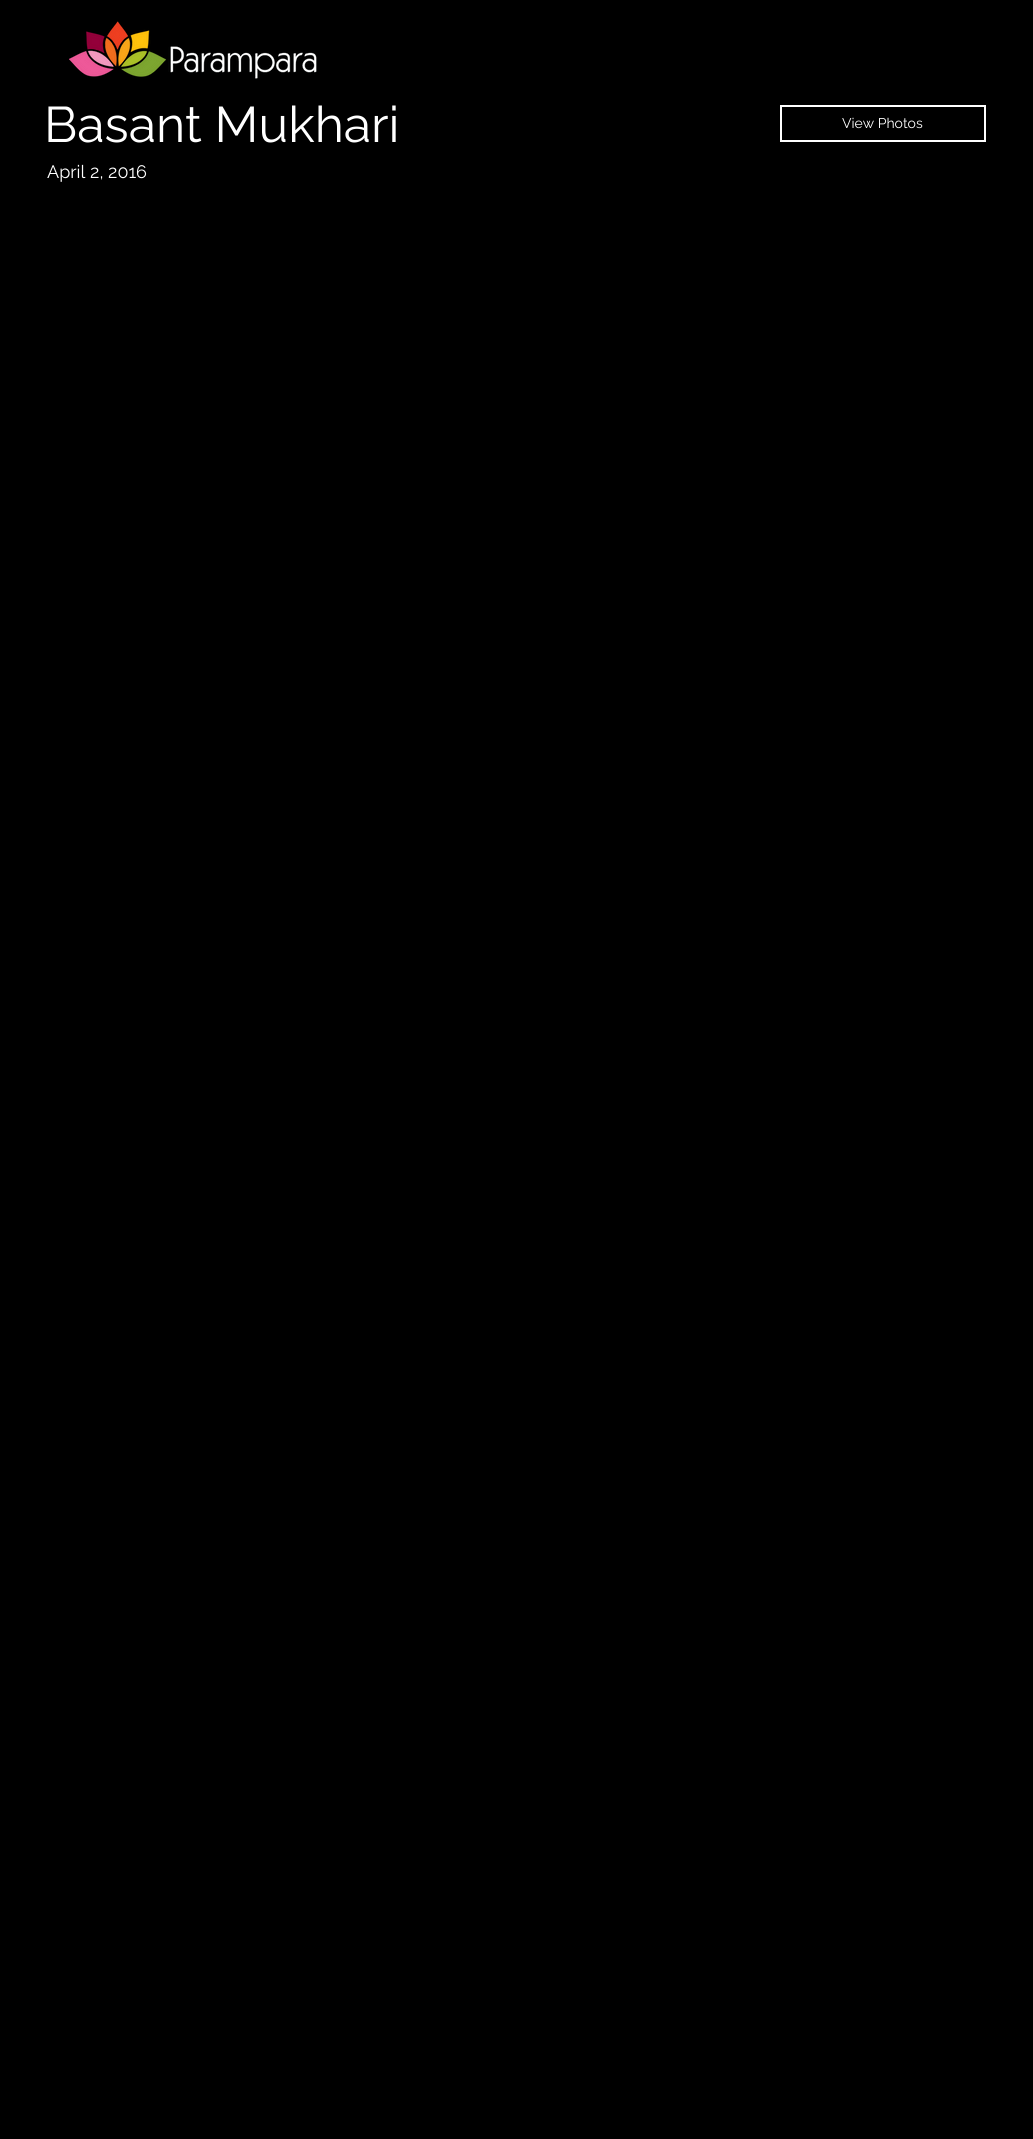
#include <cairo/cairo.h>
#include <math.h>
#include <stddef.h>

static cairo_t *cr;

static void rgb(unsigned color)
{
	cairo_set_source_rgb(cr, (color >> 16) / 255.0, (color >> 8 & 255) / 255.0, (color & 255) / 255.0);
}

static void image(const char *path, double x, double y, double w, double h)
{
	cairo_surface_t *image = cairo_image_surface_create_from_png(path);
	cairo_save(cr);
	cairo_set_source_surface(cr, image, x, y);
	cairo_rectangle(cr, x, y, w, h);
	cairo_fill(cr);
	cairo_restore(cr);
	cairo_surface_destroy(image);
}

int main(void) {
	cairo_surface_t *surface = cairo_image_surface_create(CAIRO_FORMAT_RGB24, 1033, 2139);
	cr = cairo_create(surface);
	cairo_font_options_t *options = cairo_font_options_create();
	cairo_font_options_set_hint_metrics(options, CAIRO_HINT_METRICS_OFF);
	cairo_font_options_set_hint_style(options, CAIRO_HINT_STYLE_NONE);
	cairo_set_font_options(cr, options);
	cairo_set_miter_limit(cr, 4);
	rgb(0x000000);
	cairo_paint(cr);
	image("img/1.png", 69, 21, 248, 58);
	cairo_rectangle(cr, 781, 106, 204, 35);
	rgb(0xffffff);
	cairo_stroke(cr);
	cairo_select_font_face(cr, "Raleway", CAIRO_FONT_SLANT_NORMAL, CAIRO_FONT_WEIGHT_NORMAL);
	cairo_set_font_size(cr, 50);
	cairo_move_to(cr, 44, 142);
	cairo_show_text(cr, "Basant Mukhari");
	cairo_set_font_size(cr, 14);
	cairo_move_to(cr, 842, 128);
	cairo_show_text(cr, "View Photos");
	cairo_set_font_size(cr, 18);
	cairo_move_to(cr, 47, 178);
	cairo_show_text(cr, "April 2, 2016");
	cairo_surface_write_to_png(surface, "page.png");
	cairo_font_options_destroy(options);
	cairo_destroy(cr);
	cairo_surface_destroy(surface);
	return 0;
}
